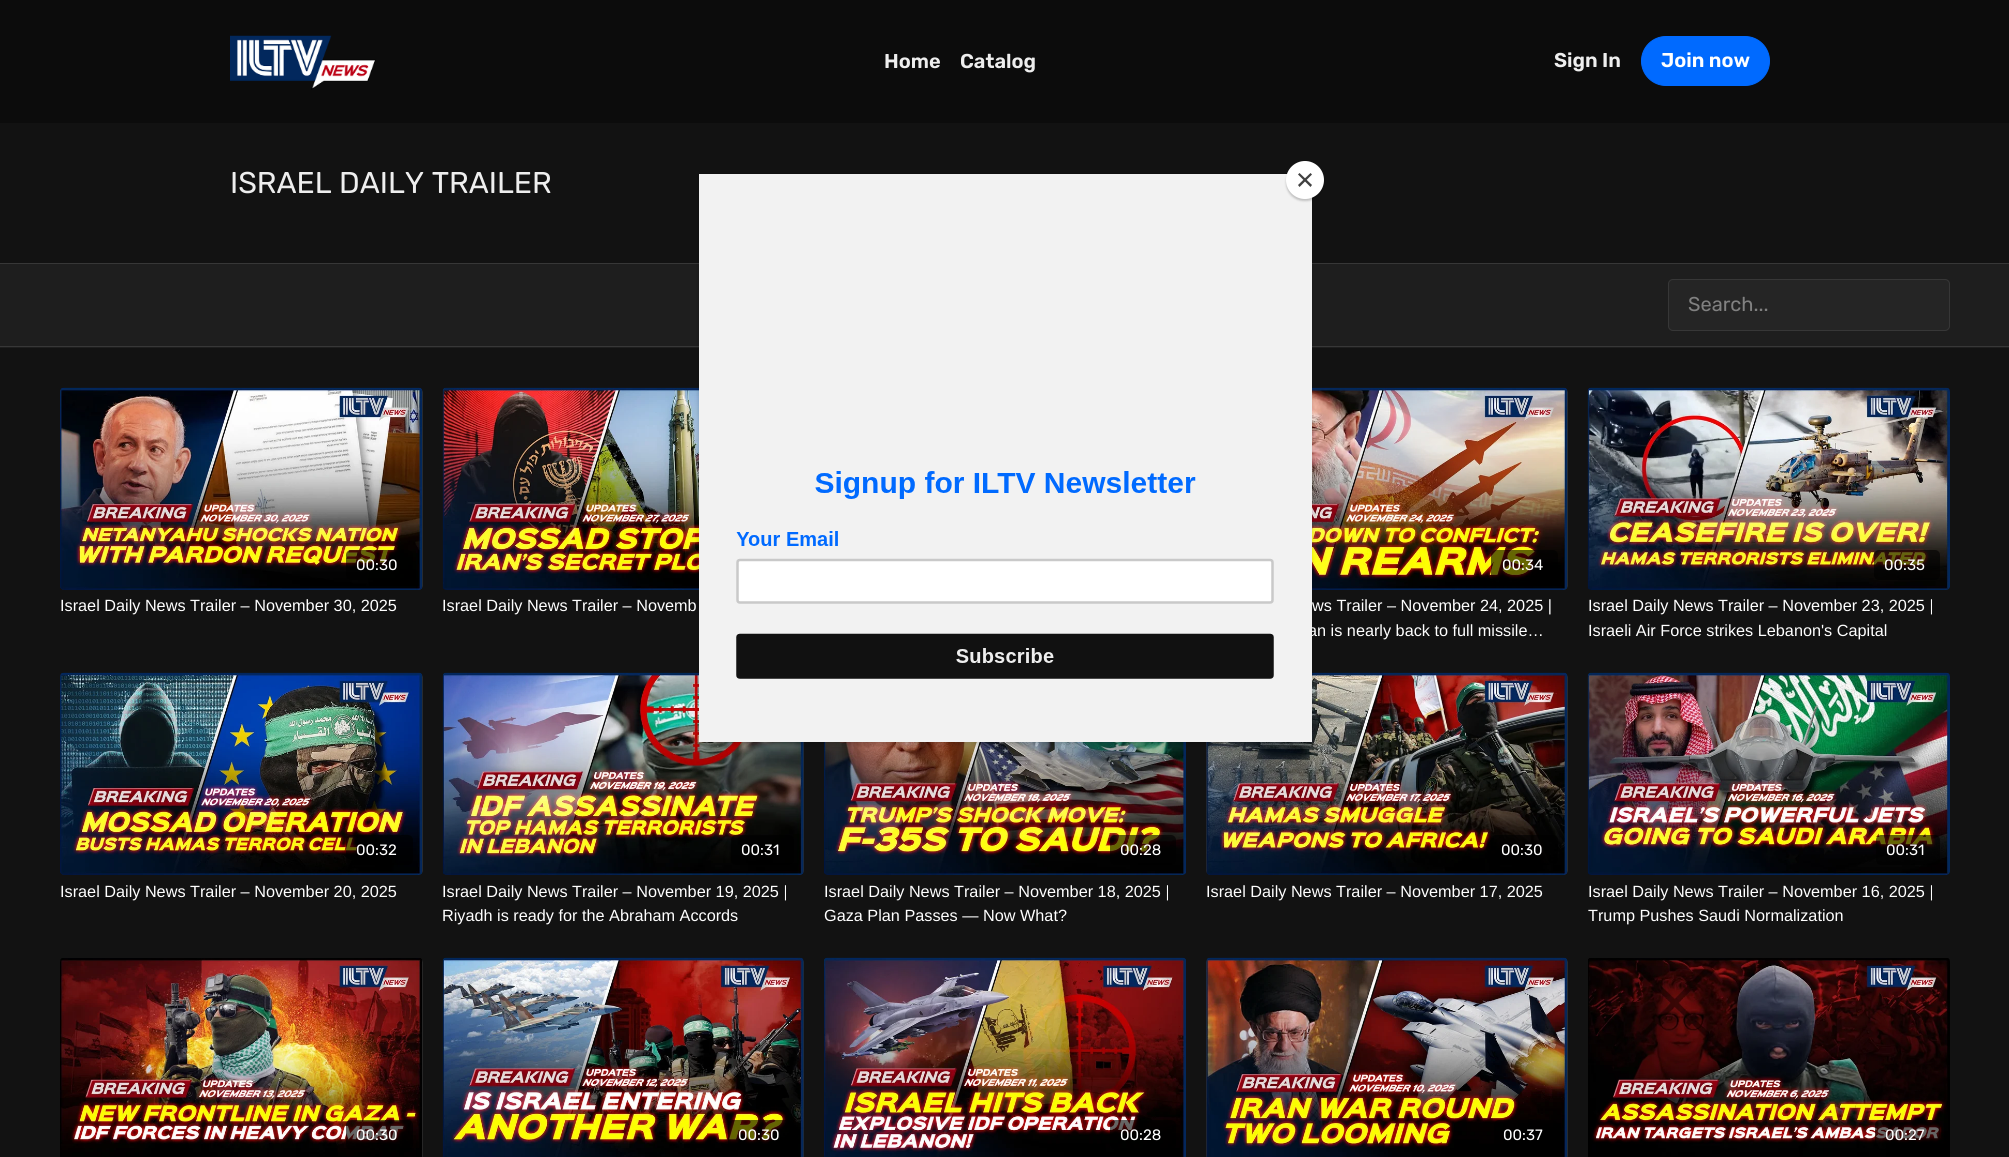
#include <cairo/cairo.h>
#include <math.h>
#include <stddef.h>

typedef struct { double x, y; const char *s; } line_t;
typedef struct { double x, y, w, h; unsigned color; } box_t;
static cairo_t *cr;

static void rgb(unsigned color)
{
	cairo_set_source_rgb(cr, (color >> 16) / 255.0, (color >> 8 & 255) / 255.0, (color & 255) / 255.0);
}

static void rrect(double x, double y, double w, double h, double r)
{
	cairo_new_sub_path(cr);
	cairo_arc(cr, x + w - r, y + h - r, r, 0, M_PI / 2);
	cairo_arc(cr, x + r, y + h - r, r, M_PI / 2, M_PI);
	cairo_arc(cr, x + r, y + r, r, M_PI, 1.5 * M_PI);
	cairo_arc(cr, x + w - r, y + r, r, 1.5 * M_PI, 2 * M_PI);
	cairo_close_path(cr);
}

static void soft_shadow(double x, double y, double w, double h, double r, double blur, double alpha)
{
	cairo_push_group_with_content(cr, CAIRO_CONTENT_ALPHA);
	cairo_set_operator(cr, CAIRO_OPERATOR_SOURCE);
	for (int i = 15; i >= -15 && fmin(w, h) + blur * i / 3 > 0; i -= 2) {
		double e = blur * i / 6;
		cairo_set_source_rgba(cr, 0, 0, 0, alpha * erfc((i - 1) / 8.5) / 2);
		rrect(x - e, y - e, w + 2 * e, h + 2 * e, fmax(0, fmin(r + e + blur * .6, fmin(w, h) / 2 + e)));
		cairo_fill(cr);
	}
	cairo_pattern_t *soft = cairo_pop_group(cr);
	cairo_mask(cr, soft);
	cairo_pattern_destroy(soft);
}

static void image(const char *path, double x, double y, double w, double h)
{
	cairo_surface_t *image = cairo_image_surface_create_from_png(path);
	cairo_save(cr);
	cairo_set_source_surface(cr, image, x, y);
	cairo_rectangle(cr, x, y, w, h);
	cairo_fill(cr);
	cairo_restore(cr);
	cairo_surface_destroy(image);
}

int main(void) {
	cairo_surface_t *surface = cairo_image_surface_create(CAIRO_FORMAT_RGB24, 2009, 1157);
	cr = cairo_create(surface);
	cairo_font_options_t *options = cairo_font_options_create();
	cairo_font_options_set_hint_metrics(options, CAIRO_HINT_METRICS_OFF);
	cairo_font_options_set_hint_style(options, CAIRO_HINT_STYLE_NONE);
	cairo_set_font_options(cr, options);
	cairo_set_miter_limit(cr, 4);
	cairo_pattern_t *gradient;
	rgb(0x121212);
	cairo_paint(cr);
	rgb(0x0c0c0c);
	cairo_rectangle(cr, 0, 0, 2009, 123);
	cairo_fill(cr);
	image("img/1.png", 230, 35, 146, 55);
	rgb(0x006aff);
	rrect(1641.5, 36.5, 128, 49, 24.5);
	cairo_fill_preserve(cr);
	cairo_set_line_width(cr, 1);
	cairo_stroke(cr);
	{
		static const box_t items[] = {
			{0, 263, 2009, 1, 0x373737},
			{0, 264, 2009, 84, 0x1e1e1e},
			{0, 346, 2009, 1, 0x373737},
		};
		for (size_t i = 0; i < sizeof items / sizeof *items; i++) {
			rgb(items[i].color);
			cairo_rectangle(cr, items[i].x, items[i].y, items[i].w, items[i].h);
			cairo_fill(cr);
		}
	}
	image("img/4.png", 442, 387, 257, 203);
	gradient = cairo_pattern_create_linear(1206, 489, 1568, 489);
	cairo_pattern_add_color_stop_rgba(gradient, 0.08, 0.192, 0.192, 0.192, 1);
	cairo_pattern_add_color_stop_rgba(gradient, 0.18, 0.18, 0.18, 0.18, 1);
	cairo_pattern_add_color_stop_rgba(gradient, 0.33, 0.173, 0.173, 0.173, 1);
	cairo_set_source(cr, gradient);
	cairo_pattern_destroy(gradient);
	rrect(1206, 388, 362, 202, 5);
	cairo_fill(cr);
	image("img/5.png", 1312, 387, 256, 203);
	gradient = cairo_pattern_create_linear(443, 774, 804, 774);
	cairo_pattern_add_color_stop_rgba(gradient, 0.08, 0.192, 0.192, 0.192, 1);
	cairo_pattern_add_color_stop_rgba(gradient, 0.18, 0.18, 0.18, 0.18, 1);
	cairo_pattern_add_color_stop_rgba(gradient, 0.33, 0.173, 0.173, 0.173, 1);
	cairo_set_source(cr, gradient);
	cairo_pattern_destroy(gradient);
	rrect(443, 673, 361, 202, 5);
	cairo_fill(cr);
	image("img/8.png", 442, 672, 362, 203);
	image("img/9.png", 824, 742, 362, 133);
	gradient = cairo_pattern_create_linear(1206, 774, 1568, 774);
	cairo_pattern_add_color_stop_rgba(gradient, 0.08, 0.192, 0.192, 0.192, 1);
	cairo_pattern_add_color_stop_rgba(gradient, 0.18, 0.18, 0.18, 0.18, 1);
	cairo_pattern_add_color_stop_rgba(gradient, 0.33, 0.173, 0.173, 0.173, 1);
	cairo_set_source(cr, gradient);
	cairo_pattern_destroy(gradient);
	rrect(1206, 673, 362, 202, 5);
	cairo_fill(cr);
	image("img/10.png", 1206, 672, 362, 203);
	rgb(0x000000);
	soft_shadow(699, 176, 612, 568, 0, 2.5, 0.2);
	rgb(0x252525);
	rrect(1668.5, 279.5, 281, 51, 4.5);
	cairo_fill_preserve(cr);
	rgb(0x373737);
	cairo_stroke(cr);
	gradient = cairo_pattern_create_linear(60, 489, 423, 489);
	cairo_pattern_add_color_stop_rgba(gradient, 0.08, 0.192, 0.192, 0.192, 1);
	cairo_pattern_add_color_stop_rgba(gradient, 0.18, 0.18, 0.18, 0.18, 1);
	cairo_pattern_add_color_stop_rgba(gradient, 0.33, 0.173, 0.173, 0.173, 1);
	cairo_set_source(cr, gradient);
	cairo_pattern_destroy(gradient);
	rrect(60, 388, 363, 202, 5);
	cairo_fill(cr);
	image("img/3.png", 60, 387, 363, 203);
	cairo_set_source_rgba(cr, 0, 0, 0, 0.6);
	rrect(346, 550, 67, 30, 5);
	cairo_fill(cr);
	rrect(1491, 550, 67, 30, 5);
	cairo_fill(cr);
	image("img/6.png", 1587, 387, 363, 203);
	rrect(1874, 550, 66, 30, 5);
	cairo_fill(cr);
	gradient = cairo_pattern_create_linear(60, 774, 423, 774);
	cairo_pattern_add_color_stop_rgba(gradient, 0.08, 0.192, 0.192, 0.192, 1);
	cairo_pattern_add_color_stop_rgba(gradient, 0.18, 0.18, 0.18, 0.18, 1);
	cairo_pattern_add_color_stop_rgba(gradient, 0.33, 0.173, 0.173, 0.173, 1);
	cairo_set_source(cr, gradient);
	cairo_pattern_destroy(gradient);
	rrect(60, 673, 363, 202, 5);
	cairo_fill(cr);
	image("img/7.png", 60, 672, 363, 203);
	cairo_set_source_rgba(cr, 0, 0, 0, 0.6);
	rrect(346, 835, 67, 30, 5);
	cairo_fill(cr);
	rrect(731, 835, 63, 30, 5);
	cairo_fill(cr);
	rrect(1110, 835, 66, 30, 5);
	cairo_fill(cr);
	rrect(1491, 835, 67, 30, 5);
	cairo_fill(cr);
	image("img/11.png", 1587, 672, 363, 203);
	rrect(1876, 835, 64, 30, 5);
	cairo_fill(cr);
	gradient = cairo_pattern_create_linear(60, 1059, 423, 1059);
	cairo_pattern_add_color_stop_rgba(gradient, 0.08, 0.192, 0.192, 0.192, 1);
	cairo_pattern_add_color_stop_rgba(gradient, 0.18, 0.18, 0.18, 0.18, 1);
	cairo_pattern_add_color_stop_rgba(gradient, 0.33, 0.173, 0.173, 0.173, 1);
	cairo_set_source(cr, gradient);
	cairo_pattern_destroy(gradient);
	rrect(60, 958, 363, 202, 5);
	cairo_fill(cr);
	image("img/12.png", 60, 958, 363, 199);
	cairo_set_source_rgba(cr, 0, 0, 0, 0.6);
	rrect(346, 1120, 67, 30, 5);
	cairo_fill(cr);
	gradient = cairo_pattern_create_linear(443, 1059, 804, 1059);
	cairo_pattern_add_color_stop_rgba(gradient, 0.08, 0.192, 0.192, 0.192, 1);
	cairo_pattern_add_color_stop_rgba(gradient, 0.18, 0.18, 0.18, 0.18, 1);
	cairo_pattern_add_color_stop_rgba(gradient, 0.33, 0.173, 0.173, 0.173, 1);
	cairo_set_source(cr, gradient);
	cairo_pattern_destroy(gradient);
	rrect(443, 958, 361, 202, 5);
	cairo_fill(cr);
	image("img/13.png", 442, 957, 362, 200);
	cairo_set_source_rgba(cr, 0, 0, 0, 0.6);
	rrect(728, 1120, 66, 30, 5);
	cairo_fill(cr);
	image("img/14.png", 824, 957, 362, 200);
	rrect(1110, 1120, 66, 30, 5);
	cairo_fill(cr);
	gradient = cairo_pattern_create_linear(1206, 1059, 1568, 1059);
	cairo_pattern_add_color_stop_rgba(gradient, 0.08, 0.192, 0.192, 0.192, 1);
	cairo_pattern_add_color_stop_rgba(gradient, 0.18, 0.18, 0.18, 0.18, 1);
	cairo_pattern_add_color_stop_rgba(gradient, 0.33, 0.173, 0.173, 0.173, 1);
	cairo_set_source(cr, gradient);
	cairo_pattern_destroy(gradient);
	rrect(1206, 958, 362, 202, 5);
	cairo_fill(cr);
	image("img/15.png", 1206, 957, 362, 200);
	cairo_set_source_rgba(cr, 0, 0, 0, 0.6);
	rrect(1494, 1120, 64, 30, 5);
	cairo_fill(cr);
	image("img/16.png", 1588, 958, 362, 199);
	rrect(1875, 1120, 65, 30, 5);
	cairo_fill(cr);
	cairo_select_font_face(cr, "Rubik SemiBold", CAIRO_FONT_SLANT_NORMAL, CAIRO_FONT_WEIGHT_NORMAL);
	cairo_set_font_size(cr, 20);
	rgb(0xeeeeee);
	{
		static const line_t items[] = {
			{884, 68, "Home"},
			{960, 68, "Catalog"},
			{1554, 67, "Sign In"},
		};
		for (size_t i = 0; i < sizeof items / sizeof *items; i++) {
			cairo_move_to(cr, items[i].x, items[i].y);
			cairo_show_text(cr, items[i].s);
		}
	}
	rgb(0xffffff);
	cairo_move_to(cr, 1661, 67);
	cairo_show_text(cr, "Join now");
	cairo_select_font_face(cr, "Rubik", CAIRO_FONT_SLANT_NORMAL, CAIRO_FONT_WEIGHT_NORMAL);
	cairo_set_font_size(cr, 30);
	rgb(0xeeeeee);
	cairo_move_to(cr, 230, 193);
	cairo_show_text(cr, "ISRAEL DAILY TRAILER");
	cairo_set_font_size(cr, 20);
	rgb(0x818181);
	cairo_move_to(cr, 1688, 311);
	cairo_show_text(cr, "Search...");
	cairo_set_font_size(cr, 15);
	rgb(0xffffff);
	cairo_move_to(cr, 356, 570);
	cairo_show_text(cr, "00:30");
	cairo_select_font_face(cr, "Liberation Sans", CAIRO_FONT_SLANT_NORMAL, CAIRO_FONT_WEIGHT_NORMAL);
	cairo_set_font_size(cr, 16.25);
	cairo_move_to(cr, 60, 611);
	cairo_show_text(cr, "Israel Daily News Trailer – November 30, 2025");
	cairo_move_to(cr, 442, 611);
	cairo_show_text(cr, "Israel Daily News Trailer – Novemb");
	cairo_select_font_face(cr, "Rubik", CAIRO_FONT_SLANT_NORMAL, CAIRO_FONT_WEIGHT_NORMAL);
	cairo_set_font_size(cr, 15);
	cairo_move_to(cr, 1502, 570);
	cairo_show_text(cr, "00:34");
	cairo_select_font_face(cr, "Liberation Sans", CAIRO_FONT_SLANT_NORMAL, CAIRO_FONT_WEIGHT_NORMAL);
	cairo_set_font_size(cr, 16.25);
	cairo_move_to(cr, 1312, 611);
	cairo_show_text(cr, "ws Trailer – November 24, 2025 |");
	cairo_move_to(cr, 1308, 636);
	cairo_show_text(cr, "an is nearly back to full missile…");
	image("img/2.png", 699, 174, 613, 568);
	rgb(0x000000);
	soft_shadow(1286, 164, 38, 37, 18.5, 1, 0.2);
	rgb(0xffffff);
	cairo_arc(cr, 1305, 180, 19, 0, 2 * M_PI);
	cairo_fill(cr);
	rgb(0x414141);
	cairo_new_path(cr);
	cairo_move_to(cr, 1310.5, 173);
	cairo_line_to(cr, 1312, 174.5);
	cairo_line_to(cr, 1299.5, 187);
	cairo_line_to(cr, 1298, 185);
	cairo_close_path(cr);
	cairo_fill(cr);
	cairo_new_path(cr);
	cairo_move_to(cr, 1298, 174.5);
	cairo_line_to(cr, 1299.5, 173);
	cairo_line_to(cr, 1312, 185);
	cairo_line_to(cr, 1310.5, 187);
	cairo_close_path(cr);
	cairo_fill(cr);
	cairo_select_font_face(cr, "Rubik", CAIRO_FONT_SLANT_NORMAL, CAIRO_FONT_WEIGHT_NORMAL);
	cairo_set_font_size(cr, 15);
	rgb(0xffffff);
	cairo_move_to(cr, 1884, 570);
	cairo_show_text(cr, "00:35");
	cairo_select_font_face(cr, "Liberation Sans", CAIRO_FONT_SLANT_NORMAL, CAIRO_FONT_WEIGHT_NORMAL);
	cairo_set_font_size(cr, 16.25);
	cairo_move_to(cr, 1588, 611);
	cairo_show_text(cr, "Israel Daily News Trailer – November 23, 2025 |");
	cairo_move_to(cr, 1588, 636);
	cairo_show_text(cr, "Israeli Air Force strikes Lebanon's Capital");
	cairo_select_font_face(cr, "Rubik", CAIRO_FONT_SLANT_NORMAL, CAIRO_FONT_WEIGHT_NORMAL);
	cairo_set_font_size(cr, 15);
	cairo_move_to(cr, 356, 855);
	cairo_show_text(cr, "00:32");
	cairo_select_font_face(cr, "Liberation Sans", CAIRO_FONT_SLANT_NORMAL, CAIRO_FONT_WEIGHT_NORMAL);
	cairo_set_font_size(cr, 16.25);
	cairo_move_to(cr, 60, 897);
	cairo_show_text(cr, "Israel Daily News Trailer – November 20, 2025");
	cairo_select_font_face(cr, "Rubik", CAIRO_FONT_SLANT_NORMAL, CAIRO_FONT_WEIGHT_NORMAL);
	cairo_set_font_size(cr, 15);
	cairo_move_to(cr, 741, 855);
	cairo_show_text(cr, "00:31");
	cairo_select_font_face(cr, "Liberation Sans", CAIRO_FONT_SLANT_NORMAL, CAIRO_FONT_WEIGHT_NORMAL);
	cairo_set_font_size(cr, 16.25);
	cairo_move_to(cr, 442, 897);
	cairo_show_text(cr, "Israel Daily News Trailer – November 19, 2025 |");
	cairo_move_to(cr, 442, 921);
	cairo_show_text(cr, "Riyadh is ready for the Abraham Accords");
	cairo_select_font_face(cr, "Rubik", CAIRO_FONT_SLANT_NORMAL, CAIRO_FONT_WEIGHT_NORMAL);
	cairo_set_font_size(cr, 15);
	cairo_move_to(cr, 1120, 855);
	cairo_show_text(cr, "00:28");
	cairo_select_font_face(cr, "Liberation Sans", CAIRO_FONT_SLANT_NORMAL, CAIRO_FONT_WEIGHT_NORMAL);
	cairo_set_font_size(cr, 16.25);
	cairo_move_to(cr, 824, 897);
	cairo_show_text(cr, "Israel Daily News Trailer – November 18, 2025 |");
	cairo_move_to(cr, 824, 921);
	cairo_show_text(cr, "Gaza Plan Passes — Now What?");
	cairo_select_font_face(cr, "Rubik", CAIRO_FONT_SLANT_NORMAL, CAIRO_FONT_WEIGHT_NORMAL);
	cairo_set_font_size(cr, 15);
	cairo_move_to(cr, 1501, 855);
	cairo_show_text(cr, "00:30");
	cairo_select_font_face(cr, "Liberation Sans", CAIRO_FONT_SLANT_NORMAL, CAIRO_FONT_WEIGHT_NORMAL);
	cairo_set_font_size(cr, 16.25);
	cairo_move_to(cr, 1206, 897);
	cairo_show_text(cr, "Israel Daily News Trailer – November 17, 2025");
	cairo_select_font_face(cr, "Rubik", CAIRO_FONT_SLANT_NORMAL, CAIRO_FONT_WEIGHT_NORMAL);
	cairo_set_font_size(cr, 15);
	cairo_move_to(cr, 1886, 855);
	cairo_show_text(cr, "00:31");
	cairo_select_font_face(cr, "Liberation Sans", CAIRO_FONT_SLANT_NORMAL, CAIRO_FONT_WEIGHT_NORMAL);
	cairo_set_font_size(cr, 16.25);
	cairo_move_to(cr, 1588, 897);
	cairo_show_text(cr, "Israel Daily News Trailer – November 16, 2025 |");
	cairo_move_to(cr, 1588, 921);
	cairo_show_text(cr, "Trump Pushes Saudi Normalization");
	cairo_select_font_face(cr, "Rubik", CAIRO_FONT_SLANT_NORMAL, CAIRO_FONT_WEIGHT_NORMAL);
	cairo_set_font_size(cr, 15);
	{
		static const line_t items[] = {
			{356, 1140, "00:30"},
			{738, 1140, "00:30"},
			{1120, 1140, "00:28"},
			{1503, 1140, "00:37"},
			{1885, 1140, "00:27"},
		};
		for (size_t i = 0; i < sizeof items / sizeof *items; i++) {
			cairo_move_to(cr, items[i].x, items[i].y);
			cairo_show_text(cr, items[i].s);
		}
	}
	cairo_surface_write_to_png(surface, "page.png");
	cairo_font_options_destroy(options);
	cairo_destroy(cr);
	cairo_surface_destroy(surface);
	return 0;
}
